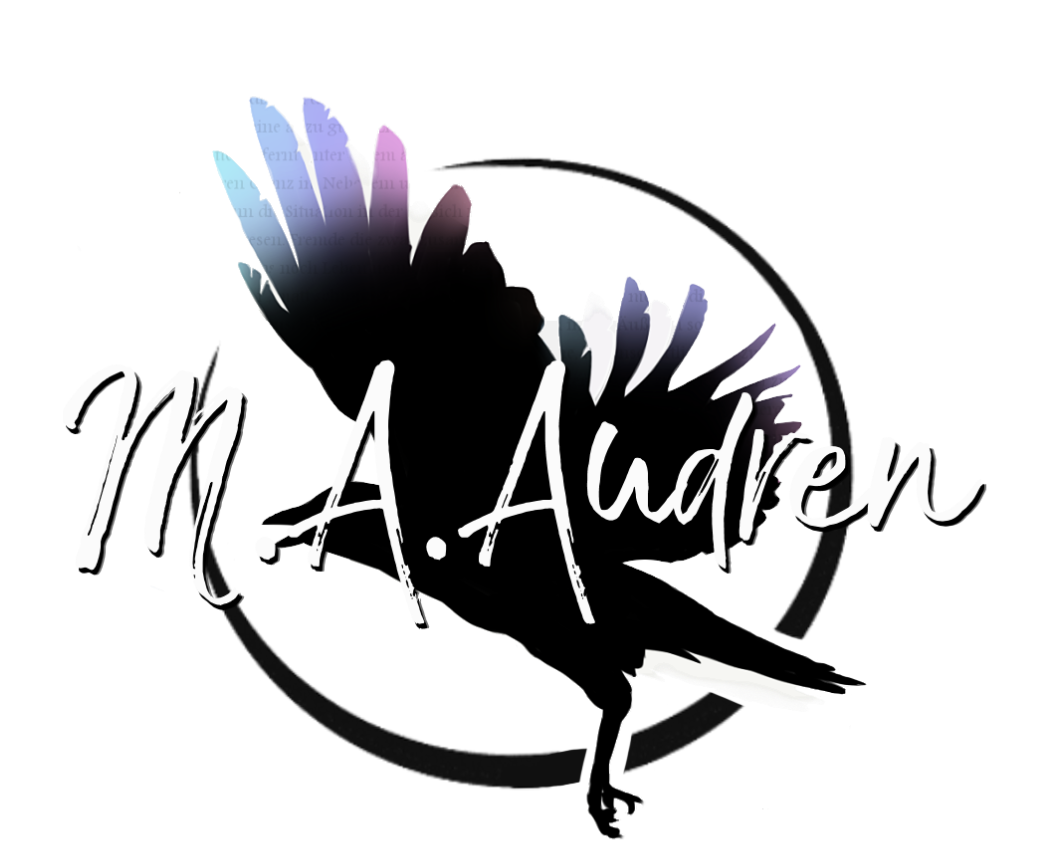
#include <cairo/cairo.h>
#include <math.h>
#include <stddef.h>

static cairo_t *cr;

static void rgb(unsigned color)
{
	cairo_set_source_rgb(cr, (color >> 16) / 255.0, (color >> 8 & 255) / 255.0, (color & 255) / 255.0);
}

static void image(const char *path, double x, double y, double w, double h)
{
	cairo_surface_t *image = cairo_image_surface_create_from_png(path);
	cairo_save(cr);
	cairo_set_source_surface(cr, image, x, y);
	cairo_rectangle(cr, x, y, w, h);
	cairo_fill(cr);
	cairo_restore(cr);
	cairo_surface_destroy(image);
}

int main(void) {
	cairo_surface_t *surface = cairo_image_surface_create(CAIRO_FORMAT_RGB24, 1060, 843);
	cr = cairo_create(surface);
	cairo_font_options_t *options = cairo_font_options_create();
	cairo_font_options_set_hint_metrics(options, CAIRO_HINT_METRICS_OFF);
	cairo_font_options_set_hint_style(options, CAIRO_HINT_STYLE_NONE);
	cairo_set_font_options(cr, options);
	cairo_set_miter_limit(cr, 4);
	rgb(0xffffff);
	cairo_paint(cr);
	image("img/1.png", 63, 96, 924, 744);
	cairo_surface_write_to_png(surface, "page.png");
	cairo_font_options_destroy(options);
	cairo_destroy(cr);
	cairo_surface_destroy(surface);
	return 0;
}
